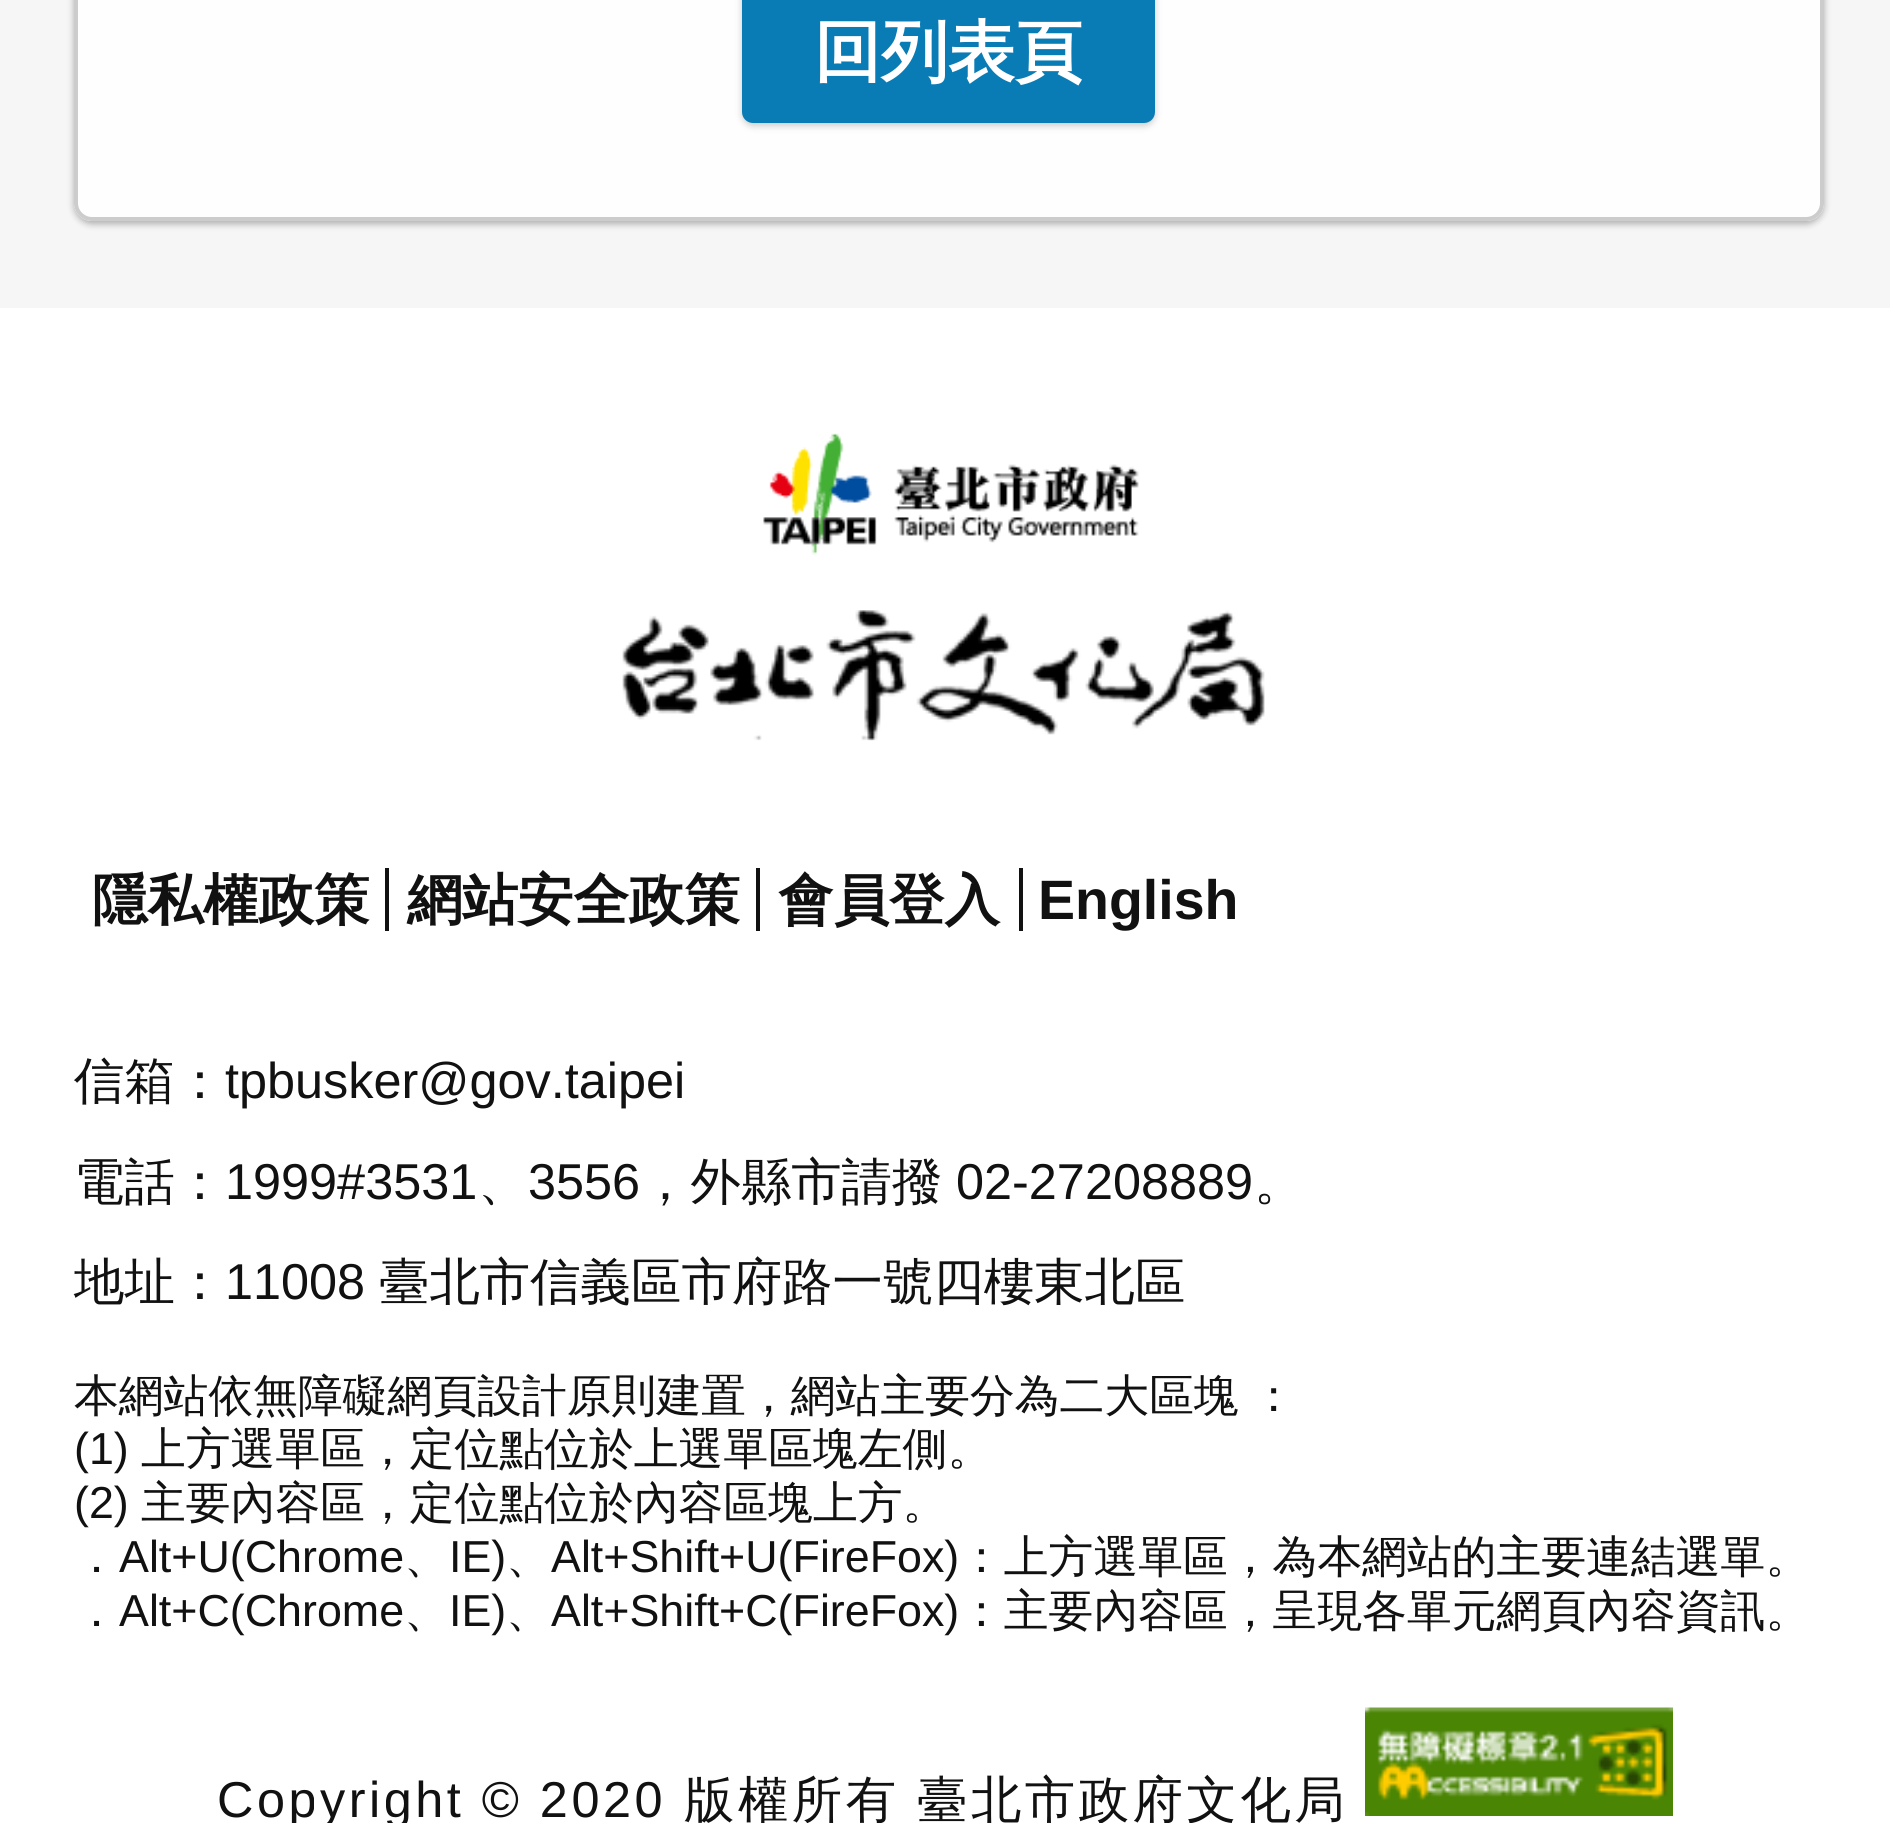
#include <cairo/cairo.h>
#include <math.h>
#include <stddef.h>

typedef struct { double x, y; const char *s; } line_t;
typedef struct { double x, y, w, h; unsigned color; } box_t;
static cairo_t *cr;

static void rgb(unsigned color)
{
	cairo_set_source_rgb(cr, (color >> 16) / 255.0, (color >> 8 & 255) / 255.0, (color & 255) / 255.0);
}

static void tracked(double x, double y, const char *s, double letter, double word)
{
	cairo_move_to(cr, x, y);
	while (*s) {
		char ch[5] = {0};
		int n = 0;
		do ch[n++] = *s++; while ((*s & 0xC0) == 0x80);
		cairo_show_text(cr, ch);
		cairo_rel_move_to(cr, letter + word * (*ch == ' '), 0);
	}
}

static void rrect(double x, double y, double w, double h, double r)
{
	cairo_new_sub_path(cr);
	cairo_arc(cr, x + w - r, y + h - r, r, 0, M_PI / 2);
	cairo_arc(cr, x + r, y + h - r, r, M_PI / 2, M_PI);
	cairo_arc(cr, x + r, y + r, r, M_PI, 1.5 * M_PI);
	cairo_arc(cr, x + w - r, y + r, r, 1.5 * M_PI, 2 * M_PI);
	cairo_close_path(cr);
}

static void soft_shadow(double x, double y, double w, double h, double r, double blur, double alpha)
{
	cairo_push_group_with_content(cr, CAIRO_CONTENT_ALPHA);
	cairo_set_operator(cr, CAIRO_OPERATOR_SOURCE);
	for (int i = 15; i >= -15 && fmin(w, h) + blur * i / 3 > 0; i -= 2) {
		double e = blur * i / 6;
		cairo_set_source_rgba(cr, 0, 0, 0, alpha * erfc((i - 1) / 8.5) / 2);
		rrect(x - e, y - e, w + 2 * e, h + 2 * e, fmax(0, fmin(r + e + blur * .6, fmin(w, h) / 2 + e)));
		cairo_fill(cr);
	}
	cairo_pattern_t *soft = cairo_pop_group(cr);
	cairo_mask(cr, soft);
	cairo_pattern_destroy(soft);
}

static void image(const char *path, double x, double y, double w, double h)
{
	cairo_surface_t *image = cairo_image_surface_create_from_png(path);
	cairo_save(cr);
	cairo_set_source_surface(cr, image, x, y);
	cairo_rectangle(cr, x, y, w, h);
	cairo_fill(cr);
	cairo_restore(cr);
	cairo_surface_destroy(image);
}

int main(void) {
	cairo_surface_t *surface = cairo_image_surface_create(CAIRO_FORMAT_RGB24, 1890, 1823);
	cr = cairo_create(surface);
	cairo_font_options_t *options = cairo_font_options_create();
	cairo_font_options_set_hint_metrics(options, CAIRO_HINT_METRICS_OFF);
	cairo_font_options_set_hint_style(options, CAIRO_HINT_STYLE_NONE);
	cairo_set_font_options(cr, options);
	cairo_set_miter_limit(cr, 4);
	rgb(0xffffff);
	cairo_paint(cr);
	rgb(0xf6f6f6);
	cairo_rectangle(cr, 0, 0, 1890, 308);
	cairo_fill(cr);
	cairo_save(cr);
	cairo_set_fill_rule(cr, CAIRO_FILL_RULE_EVEN_ODD);
	cairo_new_path(cr);
	cairo_move_to(cr, 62, 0);
	cairo_line_to(cr, 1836, 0);
	cairo_line_to(cr, 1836, 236);
	cairo_line_to(cr, 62, 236);
	cairo_close_path(cr);
	cairo_move_to(cr, 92, -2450);
	cairo_line_to(cr, 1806, -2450);
	cairo_curve_to(cr, 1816, -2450, 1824, -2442, 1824, -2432);
	cairo_line_to(cr, 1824, 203);
	cairo_curve_to(cr, 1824, 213, 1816, 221, 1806, 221);
	cairo_line_to(cr, 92, 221);
	cairo_curve_to(cr, 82, 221, 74, 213, 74, 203);
	cairo_line_to(cr, 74, -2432);
	cairo_curve_to(cr, 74, -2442, 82, -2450, 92, -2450);
	cairo_close_path(cr);
	cairo_clip(cr);
	rgb(0x000000);
	soft_shadow(74, -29, 1750, 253, 18, 3.5, 0.3);
	cairo_restore(cr);
	cairo_set_source_rgba(cr, 1, 1, 1, 0.85);
	rrect(76, -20, 1746, 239, 16);
	cairo_fill_preserve(cr);
	rgb(0xcccccc);
	cairo_set_line_width(cr, 4);
	cairo_stroke(cr);
	rgb(0x000000);
	soft_shadow(742, -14, 413, 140, 11, 3.5, 0.2);
	rgb(0x097cb5);
	rrect(744, -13, 409, 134, 9);
	cairo_fill_preserve(cr);
	cairo_stroke(cr);
	image("img/1.png", 763, 433, 376, 122);
	image("img/2.png", 622, 610, 643, 131);
	{
		static const box_t items[] = {
			{385, 868, 4, 63, 0x111111},
			{756, 868, 4, 63, 0x111111},
			{1019, 868, 4, 63, 0x111111},
		};
		for (size_t i = 0; i < sizeof items / sizeof *items; i++) {
			rgb(items[i].color);
			cairo_rectangle(cr, items[i].x, items[i].y, items[i].w, items[i].h);
			cairo_fill(cr);
		}
	}
	image("img/3.png", 1365, 1707, 308, 109);
	cairo_select_font_face(cr, "WenQuanYi Zen Hei", CAIRO_FONT_SLANT_NORMAL, CAIRO_FONT_WEIGHT_BOLD);
	cairo_set_font_size(cr, 67);
	rgb(0xffffff);
	cairo_move_to(cr, 814, 75);
	cairo_show_text(cr, "回列表頁");
	cairo_set_font_size(cr, 55.5);
	rgb(0x111111);
	{
		static const line_t items[] = {
			{92, 919, "隱私權政策"},
			{407, 919, "網站安全政策"},
			{778, 919, "會員登入"},
		};
		for (size_t i = 0; i < sizeof items / sizeof *items; i++) {
			cairo_move_to(cr, items[i].x, items[i].y);
			cairo_show_text(cr, items[i].s);
		}
	}
	cairo_select_font_face(cr, "Liberation Sans", CAIRO_FONT_SLANT_NORMAL, CAIRO_FONT_WEIGHT_BOLD);
	cairo_move_to(cr, 1038, 919);
	cairo_show_text(cr, "English");
	cairo_select_font_face(cr, "WenQuanYi Zen Hei Medium", CAIRO_FONT_SLANT_NORMAL, CAIRO_FONT_WEIGHT_NORMAL);
	cairo_set_font_size(cr, 50.4);
	cairo_move_to(cr, 74, 1098);
	cairo_show_text(cr, "信箱：");
	cairo_select_font_face(cr, "Liberation Sans", CAIRO_FONT_SLANT_NORMAL, CAIRO_FONT_WEIGHT_NORMAL);
	cairo_move_to(cr, 225, 1098);
	cairo_show_text(cr, "tpbusker@gov.taipei");
	cairo_select_font_face(cr, "WenQuanYi Zen Hei Medium", CAIRO_FONT_SLANT_NORMAL, CAIRO_FONT_WEIGHT_NORMAL);
	cairo_move_to(cr, 74, 1199);
	cairo_show_text(cr, "電話：");
	cairo_select_font_face(cr, "Liberation Sans", CAIRO_FONT_SLANT_NORMAL, CAIRO_FONT_WEIGHT_NORMAL);
	cairo_move_to(cr, 225, 1199);
	cairo_show_text(cr, "1999#3531");
	cairo_select_font_face(cr, "WenQuanYi Zen Hei Medium", CAIRO_FONT_SLANT_NORMAL, CAIRO_FONT_WEIGHT_NORMAL);
	cairo_move_to(cr, 478, 1199);
	cairo_show_text(cr, "、");
	cairo_select_font_face(cr, "Liberation Sans", CAIRO_FONT_SLANT_NORMAL, CAIRO_FONT_WEIGHT_NORMAL);
	cairo_move_to(cr, 528, 1199);
	cairo_show_text(cr, "3556");
	cairo_select_font_face(cr, "WenQuanYi Zen Hei Medium", CAIRO_FONT_SLANT_NORMAL, CAIRO_FONT_WEIGHT_NORMAL);
	cairo_move_to(cr, 640, 1199);
	cairo_show_text(cr, "，外縣市請撥");
	cairo_select_font_face(cr, "Liberation Sans", CAIRO_FONT_SLANT_NORMAL, CAIRO_FONT_WEIGHT_NORMAL);
	cairo_move_to(cr, 956, 1199);
	cairo_show_text(cr, "02-27208889");
	cairo_select_font_face(cr, "WenQuanYi Zen Hei Medium", CAIRO_FONT_SLANT_NORMAL, CAIRO_FONT_WEIGHT_NORMAL);
	cairo_move_to(cr, 1254, 1199);
	cairo_show_text(cr, "。");
	cairo_move_to(cr, 74, 1299);
	cairo_show_text(cr, "地址：");
	cairo_select_font_face(cr, "Liberation Sans", CAIRO_FONT_SLANT_NORMAL, CAIRO_FONT_WEIGHT_NORMAL);
	cairo_move_to(cr, 225, 1299);
	cairo_show_text(cr, "11008");
	cairo_select_font_face(cr, "WenQuanYi Zen Hei Medium", CAIRO_FONT_SLANT_NORMAL, CAIRO_FONT_WEIGHT_NORMAL);
	cairo_move_to(cr, 379, 1299);
	cairo_show_text(cr, "臺北市信義區市府路一號四樓東北區");
	cairo_set_font_size(cr, 44.8);
	tracked(74, 1411, "本網站依無障礙網頁設計原則建置，網站主要分為二大區塊 ：", 0, -1);
	cairo_select_font_face(cr, "Liberation Sans", CAIRO_FONT_SLANT_NORMAL, CAIRO_FONT_WEIGHT_NORMAL);
	cairo_move_to(cr, 74, 1464);
	cairo_show_text(cr, "(1)");
	cairo_select_font_face(cr, "WenQuanYi Zen Hei Medium", CAIRO_FONT_SLANT_NORMAL, CAIRO_FONT_WEIGHT_NORMAL);
	cairo_move_to(cr, 141, 1464);
	cairo_show_text(cr, "上方選單區，定位點位於上選單區塊左側。");
	cairo_select_font_face(cr, "Liberation Sans", CAIRO_FONT_SLANT_NORMAL, CAIRO_FONT_WEIGHT_NORMAL);
	cairo_move_to(cr, 74, 1518);
	cairo_show_text(cr, "(2)");
	cairo_select_font_face(cr, "WenQuanYi Zen Hei Medium", CAIRO_FONT_SLANT_NORMAL, CAIRO_FONT_WEIGHT_NORMAL);
	cairo_move_to(cr, 141, 1518);
	cairo_show_text(cr, "主要內容區，定位點位於內容區塊上方。");
	cairo_move_to(cr, 74, 1572);
	cairo_show_text(cr, "．");
	cairo_select_font_face(cr, "Liberation Sans", CAIRO_FONT_SLANT_NORMAL, CAIRO_FONT_WEIGHT_NORMAL);
	cairo_move_to(cr, 119, 1572);
	cairo_show_text(cr, "Alt+U(Chrome");
	cairo_select_font_face(cr, "WenQuanYi Zen Hei Medium", CAIRO_FONT_SLANT_NORMAL, CAIRO_FONT_WEIGHT_NORMAL);
	cairo_move_to(cr, 404, 1572);
	cairo_show_text(cr, "、");
	cairo_select_font_face(cr, "Liberation Sans", CAIRO_FONT_SLANT_NORMAL, CAIRO_FONT_WEIGHT_NORMAL);
	cairo_move_to(cr, 449, 1572);
	cairo_show_text(cr, "IE)");
	cairo_select_font_face(cr, "WenQuanYi Zen Hei Medium", CAIRO_FONT_SLANT_NORMAL, CAIRO_FONT_WEIGHT_NORMAL);
	cairo_move_to(cr, 506, 1572);
	cairo_show_text(cr, "、");
	cairo_select_font_face(cr, "Liberation Sans", CAIRO_FONT_SLANT_NORMAL, CAIRO_FONT_WEIGHT_NORMAL);
	cairo_move_to(cr, 551, 1572);
	cairo_show_text(cr, "Alt+Shift+U(FireFox)");
	cairo_select_font_face(cr, "WenQuanYi Zen Hei Medium", CAIRO_FONT_SLANT_NORMAL, CAIRO_FONT_WEIGHT_NORMAL);
	cairo_move_to(cr, 959, 1572);
	cairo_show_text(cr, "：上方選單區，為本網站的主要連結選單。");
	cairo_move_to(cr, 74, 1626);
	cairo_show_text(cr, "．");
	cairo_select_font_face(cr, "Liberation Sans", CAIRO_FONT_SLANT_NORMAL, CAIRO_FONT_WEIGHT_NORMAL);
	cairo_move_to(cr, 119, 1626);
	cairo_show_text(cr, "Alt+C(Chrome");
	cairo_select_font_face(cr, "WenQuanYi Zen Hei Medium", CAIRO_FONT_SLANT_NORMAL, CAIRO_FONT_WEIGHT_NORMAL);
	cairo_move_to(cr, 404, 1626);
	cairo_show_text(cr, "、");
	cairo_select_font_face(cr, "Liberation Sans", CAIRO_FONT_SLANT_NORMAL, CAIRO_FONT_WEIGHT_NORMAL);
	cairo_move_to(cr, 449, 1626);
	cairo_show_text(cr, "IE)");
	cairo_select_font_face(cr, "WenQuanYi Zen Hei Medium", CAIRO_FONT_SLANT_NORMAL, CAIRO_FONT_WEIGHT_NORMAL);
	cairo_move_to(cr, 506, 1626);
	cairo_show_text(cr, "、");
	cairo_select_font_face(cr, "Liberation Sans", CAIRO_FONT_SLANT_NORMAL, CAIRO_FONT_WEIGHT_NORMAL);
	cairo_move_to(cr, 551, 1626);
	cairo_show_text(cr, "Alt+Shift+C(FireFox)");
	cairo_select_font_face(cr, "WenQuanYi Zen Hei Medium", CAIRO_FONT_SLANT_NORMAL, CAIRO_FONT_WEIGHT_NORMAL);
	cairo_move_to(cr, 959, 1626);
	cairo_show_text(cr, "：主要內容區，呈現各單元網頁內容資訊。");
	cairo_select_font_face(cr, "Liberation Sans", CAIRO_FONT_SLANT_NORMAL, CAIRO_FONT_WEIGHT_NORMAL);
	cairo_set_font_size(cr, 50.4);
	tracked(217, 1817, "Copyright © 2020", 3.5, 0);
	cairo_select_font_face(cr, "WenQuanYi Zen Hei Medium", CAIRO_FONT_SLANT_NORMAL, CAIRO_FONT_WEIGHT_NORMAL);
	tracked(684, 1817, "版權所有", 3.5, 0);
	tracked(917, 1817, "臺北市政府文化局", 3.5, 0);
	cairo_surface_write_to_png(surface, "page.png");
	cairo_font_options_destroy(options);
	cairo_destroy(cr);
	cairo_surface_destroy(surface);
	return 0;
}
